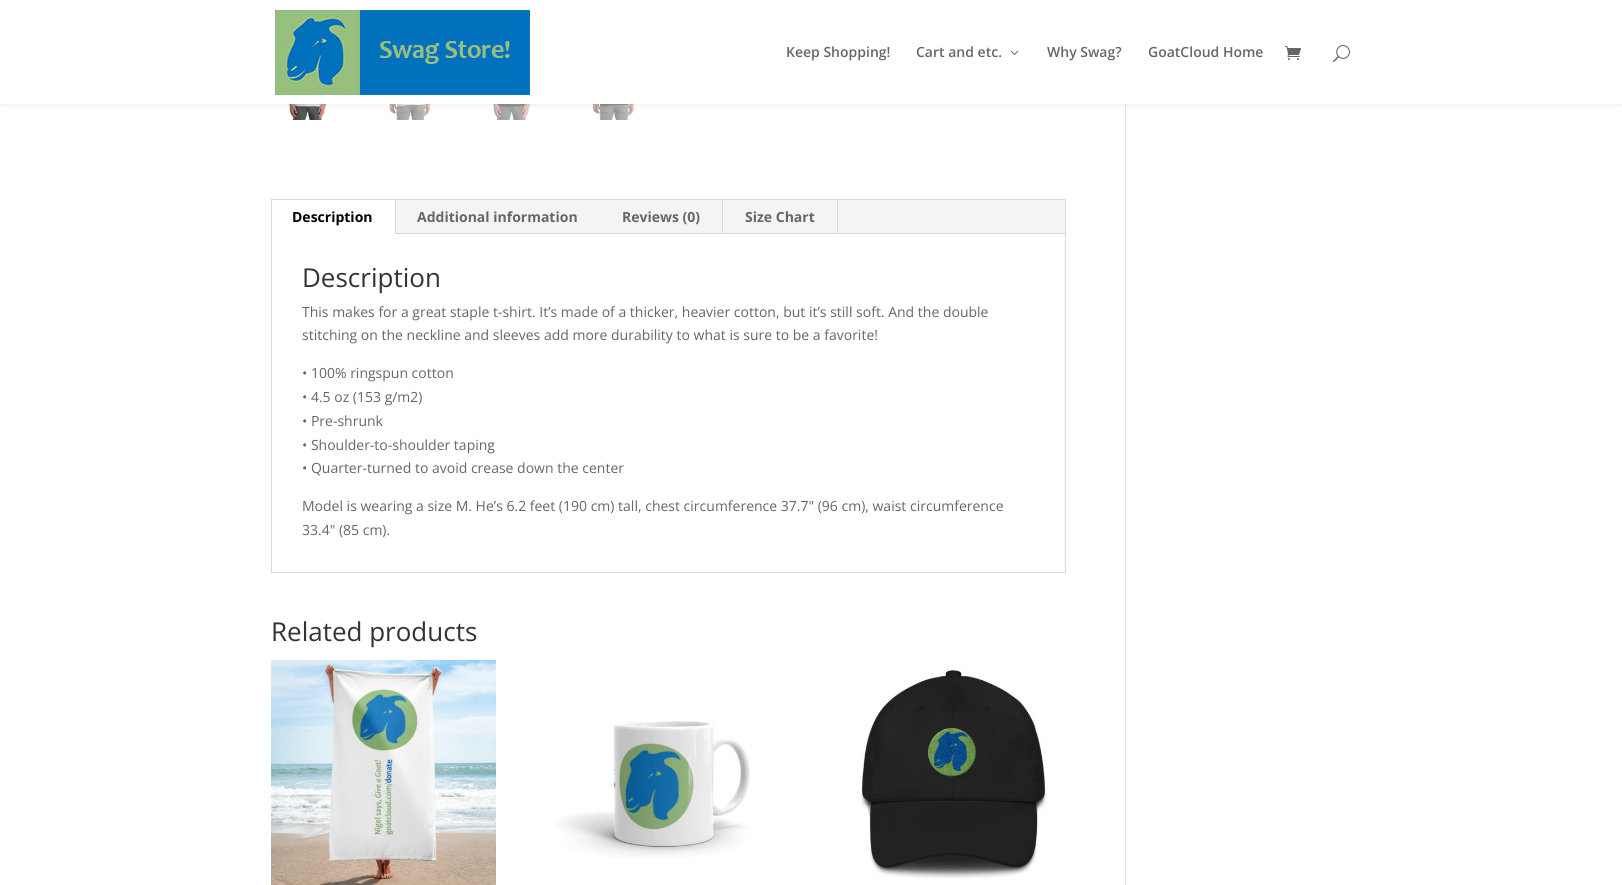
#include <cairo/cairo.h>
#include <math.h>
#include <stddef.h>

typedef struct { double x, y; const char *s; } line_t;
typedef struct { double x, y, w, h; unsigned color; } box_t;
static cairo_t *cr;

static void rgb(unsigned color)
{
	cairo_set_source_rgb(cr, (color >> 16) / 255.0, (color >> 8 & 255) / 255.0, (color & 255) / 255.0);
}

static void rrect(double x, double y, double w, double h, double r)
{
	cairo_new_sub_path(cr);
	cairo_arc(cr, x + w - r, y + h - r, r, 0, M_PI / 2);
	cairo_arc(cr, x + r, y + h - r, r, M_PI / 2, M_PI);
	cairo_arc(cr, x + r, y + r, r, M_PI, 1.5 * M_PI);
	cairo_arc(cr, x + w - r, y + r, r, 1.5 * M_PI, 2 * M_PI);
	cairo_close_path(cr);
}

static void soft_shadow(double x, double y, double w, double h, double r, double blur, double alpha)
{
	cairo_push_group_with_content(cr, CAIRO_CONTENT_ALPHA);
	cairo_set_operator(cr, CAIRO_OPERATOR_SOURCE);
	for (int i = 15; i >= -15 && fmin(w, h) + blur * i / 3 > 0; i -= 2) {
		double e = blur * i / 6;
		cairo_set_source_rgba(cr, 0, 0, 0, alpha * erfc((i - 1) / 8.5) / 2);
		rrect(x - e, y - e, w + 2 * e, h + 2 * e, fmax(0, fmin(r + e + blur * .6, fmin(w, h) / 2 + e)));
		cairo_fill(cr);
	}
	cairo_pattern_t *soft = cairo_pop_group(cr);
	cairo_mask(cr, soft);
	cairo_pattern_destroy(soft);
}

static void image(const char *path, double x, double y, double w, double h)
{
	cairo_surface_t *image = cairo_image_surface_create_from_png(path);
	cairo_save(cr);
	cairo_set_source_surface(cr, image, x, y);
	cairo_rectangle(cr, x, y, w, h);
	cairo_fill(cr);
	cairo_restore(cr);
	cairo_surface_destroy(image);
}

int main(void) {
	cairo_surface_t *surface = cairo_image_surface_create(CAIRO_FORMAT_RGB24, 1622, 885);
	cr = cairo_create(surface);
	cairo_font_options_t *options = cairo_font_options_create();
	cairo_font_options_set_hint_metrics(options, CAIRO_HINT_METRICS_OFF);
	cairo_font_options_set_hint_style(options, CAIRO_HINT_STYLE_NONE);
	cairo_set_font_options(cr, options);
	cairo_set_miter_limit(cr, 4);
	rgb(0xffffff);
	cairo_paint(cr);
	image("img/5.png", 288, 104, 40, 16);
	image("img/6.png", 389, 104, 42, 16);
	image("img/7.png", 492, 104, 41, 16);
	image("img/8.png", 592, 104, 43, 16);
	rgb(0xe2e2e2);
	cairo_rectangle(cr, 1125, 104, 1, 781);
	cairo_fill(cr);
	rgb(0x000000);
	soft_shadow(0, 0, 1622, 104, 0, 3.5, 0.1);
	rgb(0xffffff);
	cairo_rectangle(cr, 0, 0, 1622, 104);
	cairo_fill(cr);
	image("img/1.png", 275, 10, 255, 85);
	image("img/2.png", 1010, 50, 9, 5);
	image("img/3.png", 1285, 46, 16, 14);
	image("img/4.png", 1333, 45, 17, 18);
	cairo_rectangle(cr, 271.5, 199.5, 794, 373);
	rgb(0xd9d9d9);
	cairo_set_line_width(cr, 1);
	cairo_stroke(cr);
	{
		static const box_t items[] = {
			{396, 200, 669, 33, 0xf4f4f4},
			{395, 200, 1, 34, 0xd9d9d9},
			{722, 200, 1, 34, 0xd9d9d9},
			{837, 200, 1, 34, 0xd9d9d9},
			{396, 233, 669, 1, 0xd9d9d9},
		};
		for (size_t i = 0; i < sizeof items / sizeof *items; i++) {
			rgb(items[i].color);
			cairo_rectangle(cr, items[i].x, items[i].y, items[i].w, items[i].h);
			cairo_fill(cr);
		}
	}
	image("img/9.png", 271, 660, 225, 225);
	image("img/10.png", 556, 721, 194, 137);
	image("img/11.png", 860, 669, 187, 210);
	cairo_select_font_face(cr, "Open Sans SemiBold", CAIRO_FONT_SLANT_NORMAL, CAIRO_FONT_WEIGHT_NORMAL);
	cairo_set_font_size(cr, 14);
	rgb(0x666666);
	{
		static const line_t items[] = {
			{786, 57, "Keep Shopping!"},
			{916, 57, "Cart and etc."},
			{1047, 57, "Why Swag?"},
			{1148, 57, "GoatCloud Home"},
		};
		for (size_t i = 0; i < sizeof items / sizeof *items; i++) {
			cairo_move_to(cr, items[i].x, items[i].y);
			cairo_show_text(cr, items[i].s);
		}
	}
	cairo_select_font_face(cr, "Open Sans", CAIRO_FONT_SLANT_NORMAL, CAIRO_FONT_WEIGHT_BOLD);
	rgb(0x000000);
	cairo_move_to(cr, 292, 222);
	cairo_show_text(cr, "Description");
	rgb(0x666666);
	{
		static const line_t items[] = {
			{417, 222, "Additional information"},
			{622, 222, "Reviews (0)"},
			{745, 222, "Size Chart"},
		};
		for (size_t i = 0; i < sizeof items / sizeof *items; i++) {
			cairo_move_to(cr, items[i].x, items[i].y);
			cairo_show_text(cr, items[i].s);
		}
	}
	cairo_select_font_face(cr, "Open Sans", CAIRO_FONT_SLANT_NORMAL, CAIRO_FONT_WEIGHT_NORMAL);
	cairo_set_font_size(cr, 26);
	rgb(0x333333);
	cairo_move_to(cr, 302, 287);
	cairo_show_text(cr, "Description");
	cairo_set_font_size(cr, 14);
	rgb(0x666666);
	{
		static const line_t items[] = {
			{302, 317, "This makes for a great staple t-shirt. It’s made of a thicker, heavier cotton, but it’s still soft. And the double"},
			{302, 340, "stitching on the neckline and sleeves add more durability to what is sure to be a favorite!"},
			{302, 378, "• 100% ringspun cotton"},
			{302, 402, "• 4.5 oz (153 g/m2)"},
			{302, 426, "• Pre-shrunk"},
			{302, 450, "• Shoulder-to-shoulder taping"},
			{302, 473, "• Quarter-turned to avoid crease down the center"},
			{302, 511, "Model is wearing a size M. He’s 6.2 feet (190 cm) tall, chest circumference 37.7\" (96 cm), waist circumference"},
			{302, 535, "33.4\" (85 cm)."},
		};
		for (size_t i = 0; i < sizeof items / sizeof *items; i++) {
			cairo_move_to(cr, items[i].x, items[i].y);
			cairo_show_text(cr, items[i].s);
		}
	}
	cairo_set_font_size(cr, 26);
	rgb(0x333333);
	cairo_move_to(cr, 271, 641);
	cairo_show_text(cr, "Related products");
	cairo_surface_write_to_png(surface, "page.png");
	cairo_font_options_destroy(options);
	cairo_destroy(cr);
	cairo_surface_destroy(surface);
	return 0;
}
